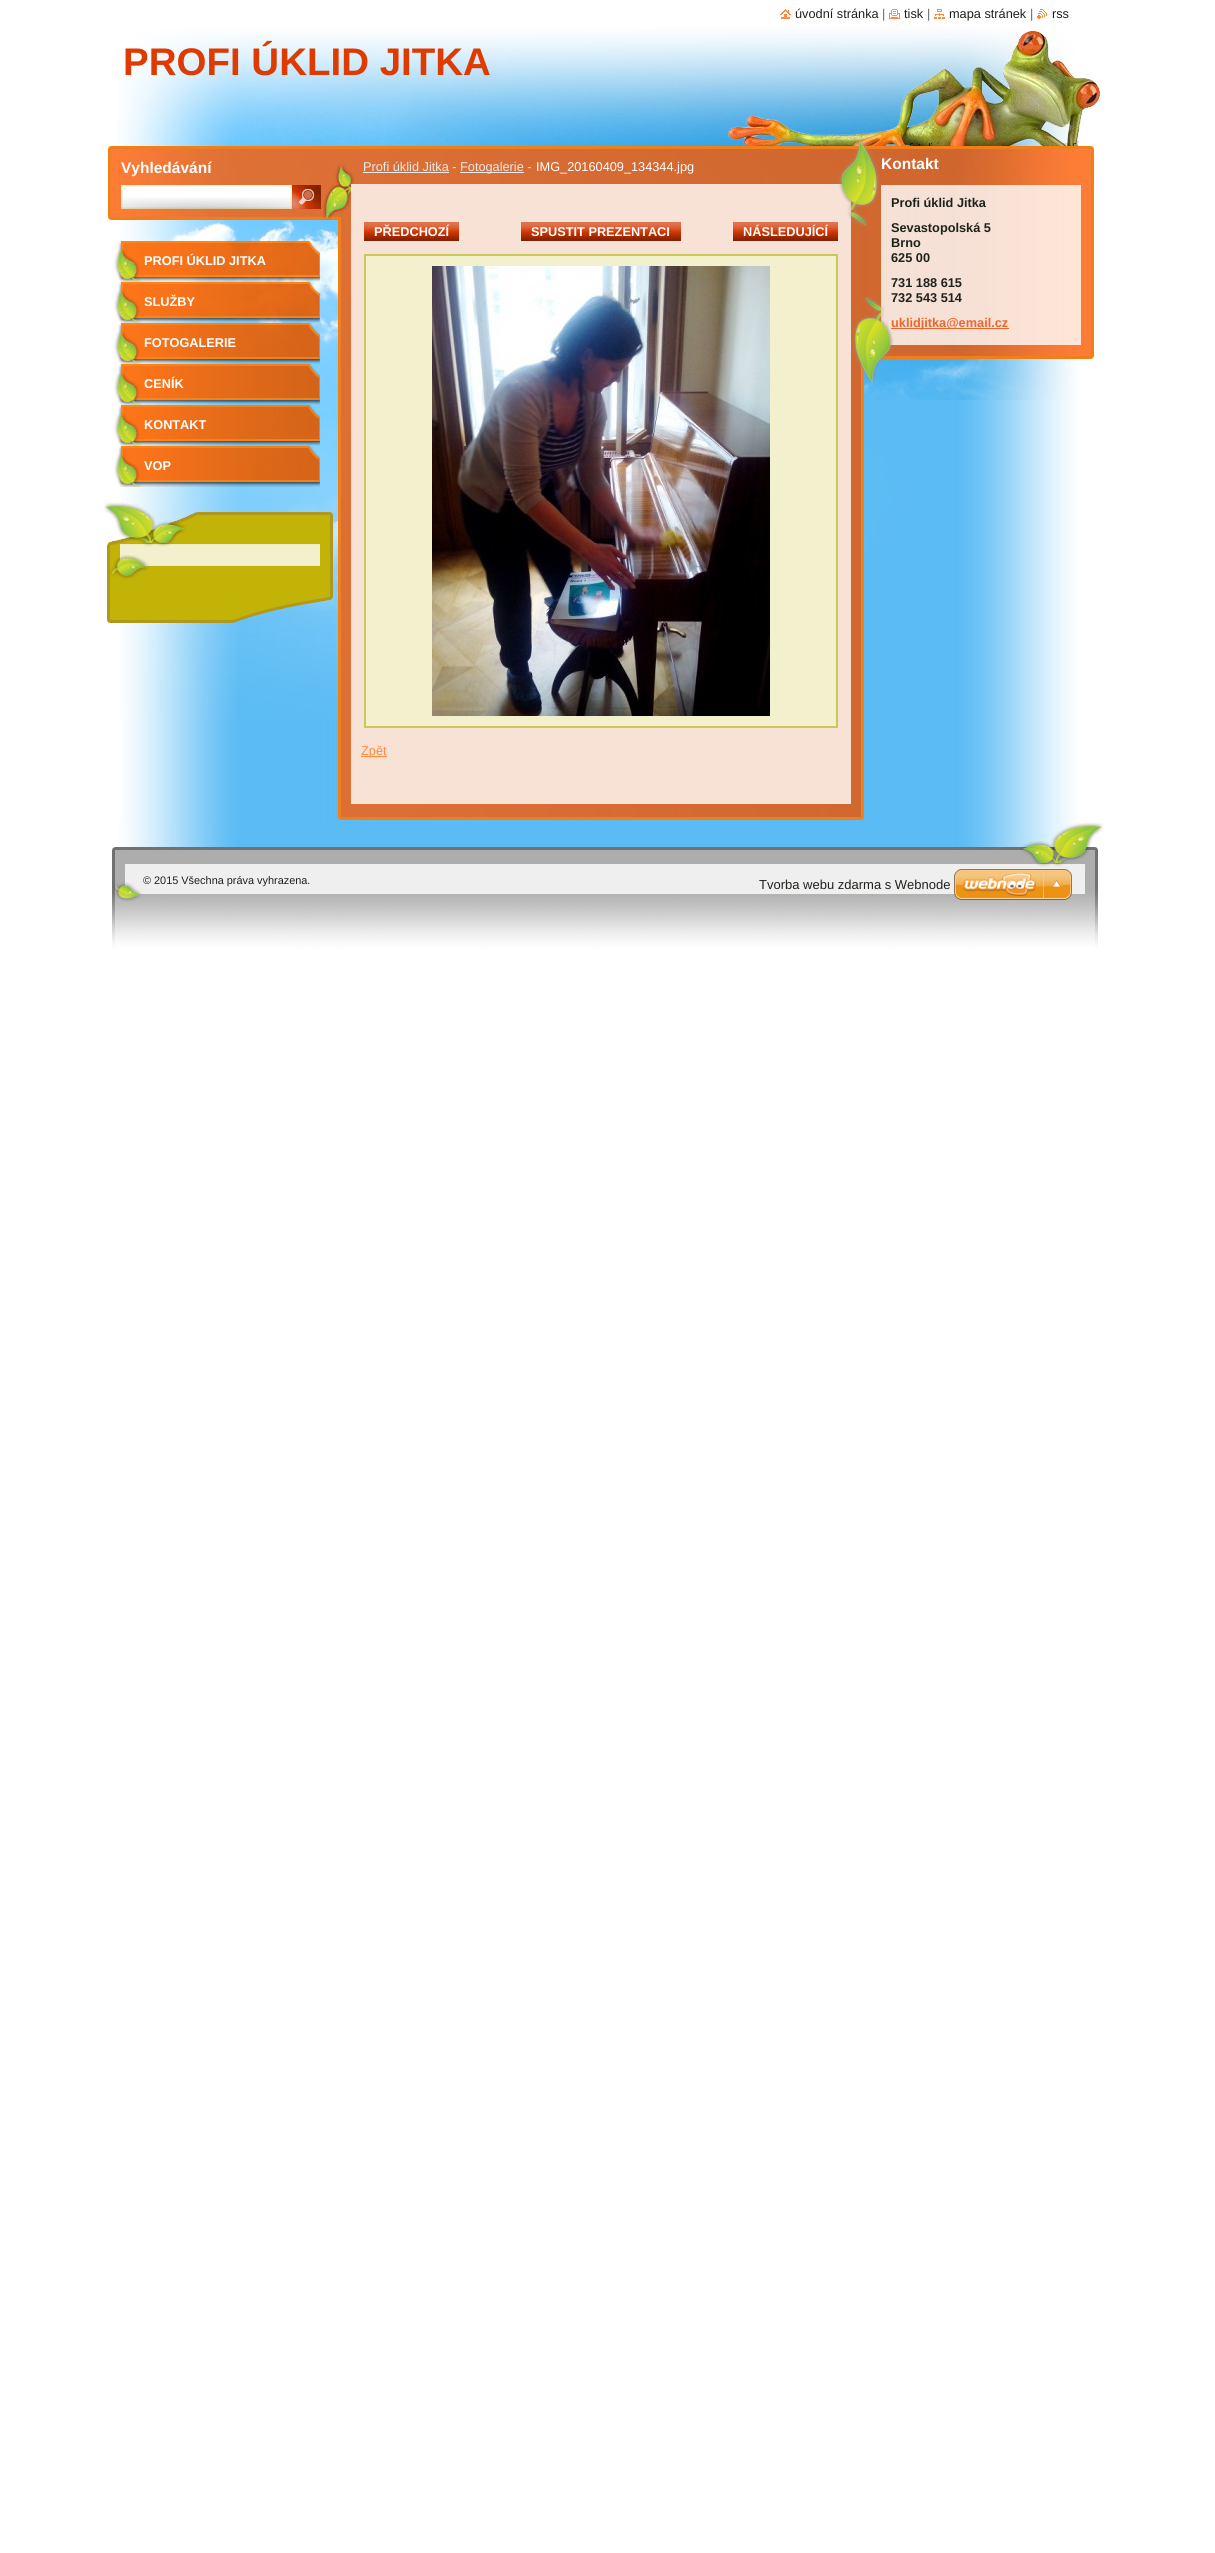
#include <cairo/cairo.h>
#include <math.h>
#include <stddef.h>

typedef struct { double x, y; const char *s; } line_t;
typedef struct { double x, y, w, h; unsigned color; } box_t;
static cairo_t *cr;

static void rgb(unsigned color)
{
	cairo_set_source_rgb(cr, (color >> 16) / 255.0, (color >> 8 & 255) / 255.0, (color & 255) / 255.0);
}

static void image(const char *path, double x, double y, double w, double h)
{
	cairo_surface_t *image = cairo_image_surface_create_from_png(path);
	cairo_save(cr);
	cairo_set_source_surface(cr, image, x, y);
	cairo_rectangle(cr, x, y, w, h);
	cairo_fill(cr);
	cairo_restore(cr);
	cairo_surface_destroy(image);
}

int main(void) {
	cairo_surface_t *surface = cairo_image_surface_create(CAIRO_FORMAT_RGB24, 1215, 2553);
	cr = cairo_create(surface);
	cairo_font_options_t *options = cairo_font_options_create();
	cairo_font_options_set_hint_metrics(options, CAIRO_HINT_METRICS_OFF);
	cairo_font_options_set_hint_style(options, CAIRO_HINT_STYLE_NONE);
	cairo_set_font_options(cr, options);
	cairo_set_miter_limit(cr, 4);
	rgb(0xffffff);
	cairo_paint(cr);
	image("img/1.png", 122, 720, 954, 102);
	image("img/2.png", 120, 0, 957, 720);
	image("img/3.png", 780, 9, 11, 10);
	image("img/4.png", 889, 9, 11, 10);
	image("img/5.png", 934, 9, 11, 10);
	image("img/6.png", 1037, 9, 10, 10);
	image("img/7.png", 118, 24, 982, 122);
	image("img/8.png", 108, 146, 986, 74);
	image("img/9.png", 121, 185, 171, 24);
	image("img/10.png", 292, 185, 29, 24);
	image("img/11.png", 338, 220, 526, 597);
	image("img/12.png", 338, 146, 526, 74);
	{
		static const box_t items[] = {
			{363, 172, 86, 1, 0xe9e9e9},
			{460, 172, 64, 1, 0xe9e9e9},
			{351, 184, 500, 620, 0xf8e2d6},
		};
		for (size_t i = 0; i < sizeof items / sizeof *items; i++) {
			rgb(items[i].color);
			cairo_rectangle(cr, items[i].x, items[i].y, items[i].w, items[i].h);
			cairo_fill(cr);
		}
	}
	image("img/13.png", 364, 222, 95, 19);
	image("img/14.png", 521, 222, 160, 19);
	image("img/15.png", 733, 222, 105, 19);
	rgb(0xf3f0cd);
	cairo_rectangle(cr, 365, 255, 472, 472);
	cairo_fill_preserve(cr);
	rgb(0xc9c957);
	cairo_stroke(cr);
	image("img/16.png", 432, 266, 338, 450);
	rgb(0xfe8a3d);
	cairo_rectangle(cr, 361, 756, 26, 1);
	cairo_fill(cr);
	image("img/17.png", 338, 817, 526, 3);
	image("img/19.png", 861, 185, 233, 160);
	image("img/18.png", 838, 139, 42, 88);
	rgb(0xee652c);
	cairo_rectangle(cr, 891, 328, 41, 1);
	cairo_fill(cr);
	cairo_rectangle(cr, 932, 328, 77, 1);
	cairo_fill(cr);
	image("img/21.png", 869, 345, 225, 14);
	image("img/22.png", 114, 241, 206, 41);
	image("img/23.png", 114, 282, 206, 41);
	image("img/24.png", 114, 323, 206, 41);
	image("img/25.png", 114, 364, 206, 41);
	image("img/26.png", 114, 405, 206, 41);
	image("img/27.png", 114, 446, 206, 41);
	image("img/28.png", 104, 502, 229, 45);
	image("img/29.png", 107, 547, 226, 8);
	image("img/30.png", 107, 555, 226, 68);
	image("img/31.png", 112, 822, 992, 128);
	image("img/32.png", 954, 869, 118, 31);
	cairo_select_font_face(cr, "Liberation Sans", CAIRO_FONT_SLANT_NORMAL, CAIRO_FONT_WEIGHT_NORMAL);
	cairo_set_font_size(cr, 12.75);
	rgb(0x1f221c);
	cairo_move_to(cr, 795, 18);
	cairo_show_text(cr, "úvodní stránka");
	rgb(0x646464);
	cairo_move_to(cr, 882, 18);
	cairo_show_text(cr, "|");
	rgb(0x1f221c);
	cairo_move_to(cr, 904, 18);
	cairo_show_text(cr, "tisk");
	rgb(0x646464);
	cairo_move_to(cr, 927, 18);
	cairo_show_text(cr, "|");
	rgb(0x1f221c);
	cairo_move_to(cr, 949, 18);
	cairo_show_text(cr, "mapa stránek");
	rgb(0x646464);
	cairo_move_to(cr, 1030, 18);
	cairo_show_text(cr, "|");
	rgb(0x1f221c);
	cairo_move_to(cr, 1052, 18);
	cairo_show_text(cr, "rss");
	cairo_select_font_face(cr, "Liberation Sans", CAIRO_FONT_SLANT_NORMAL, CAIRO_FONT_WEIGHT_BOLD);
	cairo_set_font_size(cr, 38.5);
	rgb(0xdf3a00);
	cairo_move_to(cr, 123, 75);
	cairo_show_text(cr, "PROFI ÚKLID JITKA");
	cairo_set_font_size(cr, 15.5);
	rgb(0xffffff);
	cairo_move_to(cr, 121, 173);
	cairo_show_text(cr, "Vyhledávání");
	cairo_select_font_face(cr, "Liberation Sans", CAIRO_FONT_SLANT_NORMAL, CAIRO_FONT_WEIGHT_NORMAL);
	cairo_set_font_size(cr, 12.75);
	rgb(0xe9e9e9);
	cairo_move_to(cr, 363, 171);
	cairo_show_text(cr, "Profi úklid Jitka -");
	cairo_move_to(cr, 460, 171);
	cairo_show_text(cr, "Fotogalerie -");
	rgb(0xffffff);
	cairo_move_to(cr, 536, 171);
	cairo_show_text(cr, "IMG_20160409_134344.jpg");
	cairo_select_font_face(cr, "Liberation Sans", CAIRO_FONT_SLANT_NORMAL, CAIRO_FONT_WEIGHT_BOLD);
	{
		static const line_t items[] = {
			{374, 236, "PŘEDCHOZÍ"},
			{531, 236, "SPUSTIT PREZENTACI"},
			{743, 236, "NÁSLEDUJÍCÍ"},
		};
		for (size_t i = 0; i < sizeof items / sizeof *items; i++) {
			cairo_move_to(cr, items[i].x, items[i].y);
			cairo_show_text(cr, items[i].s);
		}
	}
	cairo_select_font_face(cr, "Liberation Sans", CAIRO_FONT_SLANT_NORMAL, CAIRO_FONT_WEIGHT_NORMAL);
	rgb(0xfe8a3d);
	cairo_move_to(cr, 361, 755);
	cairo_show_text(cr, "Zpět");
	cairo_select_font_face(cr, "Liberation Sans", CAIRO_FONT_SLANT_NORMAL, CAIRO_FONT_WEIGHT_BOLD);
	cairo_set_font_size(cr, 15.5);
	rgb(0xffffff);
	cairo_move_to(cr, 881, 169);
	cairo_show_text(cr, "Kontakt");
	cairo_set_font_size(cr, 12.75);
	rgb(0x1f221c);
	{
		static const line_t items[] = {
			{891, 207, "Profi úklid Jitka"},
			{891, 232, "Sevastopolská 5"},
			{891, 247, "Brno"},
			{891, 262, "625 00"},
			{891, 287, "731 188 615"},
			{891, 302, "732 543 514"},
		};
		for (size_t i = 0; i < sizeof items / sizeof *items; i++) {
			cairo_move_to(cr, items[i].x, items[i].y);
			cairo_show_text(cr, items[i].s);
		}
	}
	rgb(0xee652c);
	cairo_move_to(cr, 891, 327);
	cairo_show_text(cr, "uklidjit");
	cairo_move_to(cr, 932, 327);
	cairo_show_text(cr, "ka@email.cz");
	image("img/20.png", 853, 296, 41, 88);
	rgb(0xffffff);
	{
		static const line_t items[] = {
			{144, 265, "PROFI ÚKLID JITKA"},
			{144, 306, "SLUŽBY"},
			{144, 347, "FOTOGALERIE"},
			{144, 388, "CENÍK"},
			{144, 429, "KONTAKT"},
			{144, 470, "VOP"},
		};
		for (size_t i = 0; i < sizeof items / sizeof *items; i++) {
			cairo_move_to(cr, items[i].x, items[i].y);
			cairo_show_text(cr, items[i].s);
		}
	}
	cairo_select_font_face(cr, "Liberation Sans", CAIRO_FONT_SLANT_NORMAL, CAIRO_FONT_WEIGHT_NORMAL);
	cairo_set_font_size(cr, 10.9);
	rgb(0x1f221c);
	cairo_move_to(cr, 143, 884);
	cairo_show_text(cr, "© 2015 Všechna práva vyhrazena.");
	cairo_set_font_size(cr, 13);
	cairo_move_to(cr, 759, 889);
	cairo_show_text(cr, "Tvorba webu zdarma s Webnode");
	cairo_surface_write_to_png(surface, "page.png");
	cairo_font_options_destroy(options);
	cairo_destroy(cr);
	cairo_surface_destroy(surface);
	return 0;
}
